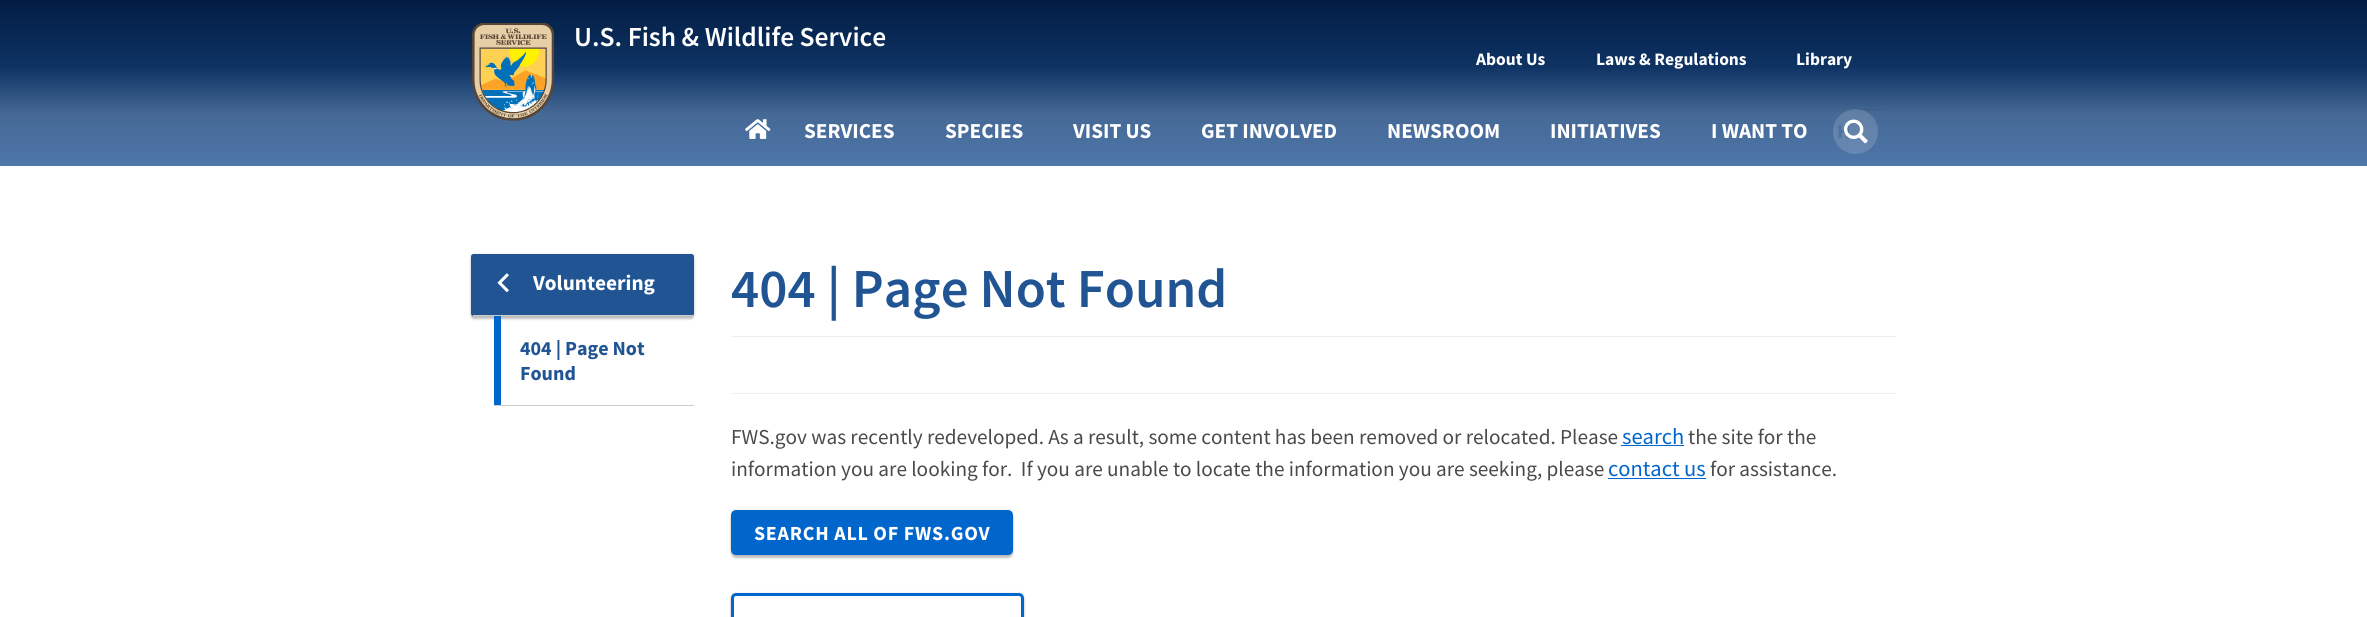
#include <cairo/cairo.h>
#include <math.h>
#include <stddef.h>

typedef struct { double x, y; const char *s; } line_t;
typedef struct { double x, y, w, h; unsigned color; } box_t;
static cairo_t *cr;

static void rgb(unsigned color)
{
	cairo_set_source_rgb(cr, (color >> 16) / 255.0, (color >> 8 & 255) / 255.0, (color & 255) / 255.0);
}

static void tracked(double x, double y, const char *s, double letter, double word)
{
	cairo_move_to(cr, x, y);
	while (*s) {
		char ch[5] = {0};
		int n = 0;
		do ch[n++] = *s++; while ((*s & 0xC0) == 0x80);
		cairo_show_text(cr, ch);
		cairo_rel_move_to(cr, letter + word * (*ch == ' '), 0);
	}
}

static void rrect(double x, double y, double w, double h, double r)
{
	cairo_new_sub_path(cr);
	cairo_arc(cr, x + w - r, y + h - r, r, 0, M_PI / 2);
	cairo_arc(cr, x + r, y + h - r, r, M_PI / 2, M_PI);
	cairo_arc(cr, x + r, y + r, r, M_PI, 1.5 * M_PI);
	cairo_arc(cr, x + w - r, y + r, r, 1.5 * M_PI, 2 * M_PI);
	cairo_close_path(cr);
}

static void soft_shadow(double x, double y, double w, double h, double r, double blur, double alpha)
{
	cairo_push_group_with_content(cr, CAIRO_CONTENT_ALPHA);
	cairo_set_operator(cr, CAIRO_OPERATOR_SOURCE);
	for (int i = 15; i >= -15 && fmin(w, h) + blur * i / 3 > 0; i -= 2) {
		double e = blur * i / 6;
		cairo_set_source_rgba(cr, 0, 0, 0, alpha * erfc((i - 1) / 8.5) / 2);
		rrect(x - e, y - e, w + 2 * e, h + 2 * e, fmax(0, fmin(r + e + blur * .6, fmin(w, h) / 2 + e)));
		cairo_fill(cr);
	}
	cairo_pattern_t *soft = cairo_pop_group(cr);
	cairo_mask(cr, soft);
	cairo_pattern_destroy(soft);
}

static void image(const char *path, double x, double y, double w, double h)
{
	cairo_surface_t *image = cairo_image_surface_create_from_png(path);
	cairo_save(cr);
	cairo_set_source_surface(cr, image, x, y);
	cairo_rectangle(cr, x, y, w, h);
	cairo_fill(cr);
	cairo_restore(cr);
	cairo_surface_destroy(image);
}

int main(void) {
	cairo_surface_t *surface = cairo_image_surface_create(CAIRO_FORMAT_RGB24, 2367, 617);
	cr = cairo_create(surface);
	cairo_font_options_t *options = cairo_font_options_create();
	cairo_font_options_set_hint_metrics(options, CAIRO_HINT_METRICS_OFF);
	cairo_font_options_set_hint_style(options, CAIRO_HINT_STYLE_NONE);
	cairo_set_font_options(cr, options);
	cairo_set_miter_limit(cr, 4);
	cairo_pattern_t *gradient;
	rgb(0xffffff);
	cairo_paint(cr);
	gradient = cairo_pattern_create_linear(1184, 0, 1184, 166);
	cairo_pattern_add_color_stop_rgba(gradient, 0, 0.008, 0.114, 0.267, 1);
	cairo_pattern_add_color_stop_rgba(gradient, 0.4, 0.055, 0.2, 0.388, 1);
	cairo_pattern_add_color_stop_rgba(gradient, 0.69, 0.275, 0.412, 0.588, 1);
	cairo_pattern_add_color_stop_rgba(gradient, 1, 0.302, 0.463, 0.663, 1);
	cairo_set_source(cr, gradient);
	cairo_pattern_destroy(gradient);
	cairo_rectangle(cr, 0, 0, 2367, 166);
	cairo_fill(cr);
	image("img/1.png", 472, 23, 83, 98);
	image("img/2.png", 745, 119, 26, 20);
	cairo_set_source_rgba(cr, 0, 0, 0, 0.07);
	cairo_new_path(cr);
	cairo_move_to(cr, 1855, 110);
	cairo_line_to(cr, 1885, 110);
	cairo_line_to(cr, 1885, 109);
	cairo_line_to(cr, 1856, 109);
	cairo_curve_to(cr, 1848, 109, 1841, 113, 1837, 118);
	cairo_curve_to(cr, 1842, 113, 1848, 110, 1855, 110);
	cairo_close_path(cr);
	cairo_fill(cr);
	cairo_set_source_rgba(cr, 1, 1, 1, 0.15);
	cairo_arc(cr, 1855.5, 131.5, 22.5, 0, 2 * M_PI);
	cairo_fill(cr);
	rgb(0x000000);
	soft_shadow(471, 256, 223, 63, 2.5, 1, 0.24);
	soft_shadow(471, 254, 223, 62, 2.5, 1, 0.12);
	rgb(0x205493);
	rrect(471, 254, 223, 62, 2.5);
	cairo_fill(cr);
	rgb(0xcccccc);
	cairo_rectangle(cr, 473, 315, 220, 1);
	cairo_fill(cr);
	image("img/4.png", 497, 273, 12, 20);
	{
		static const box_t items[] = {
			{494, 405, 200, 1, 0xcccccc},
			{494, 316, 7, 89, 0x0066cc},
			{731, 336, 1165, 1, 0xeeeeee},
			{731, 393, 1165, 1, 0xeeeeee},
			{1621, 445, 63, 1, 0x0066cc},
			{1608, 478, 98, 1, 0x0066cc},
		};
		for (size_t i = 0; i < sizeof items / sizeof *items; i++) {
			rgb(items[i].color);
			cairo_rectangle(cr, items[i].x, items[i].y, items[i].w, items[i].h);
			cairo_fill(cr);
		}
	}
	rgb(0x000000);
	soft_shadow(731, 513, 282, 45, 5, 1, 0.24);
	soft_shadow(731, 510, 282, 45, 5, 1, 0.12);
	rgb(0x0066cc);
	rrect(732.5, 511.5, 279, 42, 3.5);
	cairo_fill_preserve(cr);
	cairo_set_line_width(cr, 3);
	cairo_stroke(cr);
	rgb(0x000000);
	soft_shadow(731, 595, 293, 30, 5, 1, 0.24);
	soft_shadow(731, 593, 293, 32, 5, 1, 0.12);
	rgb(0xffffff);
	rrect(732.5, 594.5, 290, 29, 3.5);
	cairo_fill_preserve(cr);
	rgb(0x0066cc);
	cairo_stroke(cr);
	cairo_select_font_face(cr, "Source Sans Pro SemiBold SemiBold", CAIRO_FONT_SLANT_NORMAL, CAIRO_FONT_WEIGHT_NORMAL);
	cairo_set_font_size(cr, 27.5);
	rgb(0xffffff);
	cairo_move_to(cr, 574, 46);
	cairo_show_text(cr, "U.S. Fish & Wildlife Service");
	cairo_select_font_face(cr, "Source Sans Pro", CAIRO_FONT_SLANT_NORMAL, CAIRO_FONT_WEIGHT_BOLD);
	cairo_set_font_size(cr, 17.5);
	{
		static const line_t items[] = {
			{1476, 65, "About Us"},
			{1596, 65, "Laws & Regulations"},
			{1796, 65, "Library"},
		};
		for (size_t i = 0; i < sizeof items / sizeof *items; i++) {
			cairo_move_to(cr, items[i].x, items[i].y);
			cairo_show_text(cr, items[i].s);
		}
	}
	cairo_set_font_size(cr, 21.25);
	{
		static const line_t items[] = {
			{804, 138, "SERVICES"},
			{945, 138, "SPECIES"},
			{1073, 138, "VISIT US"},
			{1201, 138, "GET INVOLVED"},
			{1387, 138, "NEWSROOM"},
			{1550, 138, "INITIATIVES"},
			{1711, 138, "I WANT TO"},
		};
		for (size_t i = 0; i < sizeof items / sizeof *items; i++) {
			cairo_move_to(cr, items[i].x, items[i].y);
			cairo_show_text(cr, items[i].s);
		}
	}
	cairo_set_font_size(cr, 20);
	rgb(0x4e729f);
	tracked(1837, 138, "H", 0.75, 0);
	image("img/3.png", 1843, 119, 25, 25);
	cairo_set_font_size(cr, 21.25);
	rgb(0xffffff);
	cairo_move_to(cr, 533, 290);
	cairo_show_text(cr, "Volunteering");
	cairo_set_font_size(cr, 20);
	rgb(0x205493);
	cairo_move_to(cr, 520, 355);
	cairo_show_text(cr, "404 | Page Not");
	cairo_move_to(cr, 520, 380);
	cairo_show_text(cr, "Found");
	cairo_select_font_face(cr, "Source Sans Pro SemiBold SemiBold", CAIRO_FONT_SLANT_NORMAL, CAIRO_FONT_WEIGHT_NORMAL);
	cairo_set_font_size(cr, 55);
	cairo_move_to(cr, 731, 307);
	cairo_show_text(cr, "404 | Page Not Found");
	cairo_select_font_face(cr, "Source Sans Pro", CAIRO_FONT_SLANT_NORMAL, CAIRO_FONT_WEIGHT_NORMAL);
	cairo_set_font_size(cr, 21.25);
	rgb(0x4a4a4a);
	cairo_move_to(cr, 731, 444);
	cairo_show_text(cr, "FWS.gov was recently redeveloped. As a result, some content has been removed or relocated. Please");
	cairo_set_font_size(cr, 22.5);
	rgb(0x0066cc);
	cairo_move_to(cr, 1622, 444);
	cairo_show_text(cr, "search");
	cairo_set_font_size(cr, 21.25);
	rgb(0x4a4a4a);
	cairo_move_to(cr, 1688, 444);
	cairo_show_text(cr, "the site for the");
	cairo_move_to(cr, 731, 476);
	cairo_show_text(cr, "information you are looking for.  If you are unable to locate the information you are seeking, please");
	cairo_set_font_size(cr, 22.5);
	rgb(0x0066cc);
	cairo_move_to(cr, 1608, 476);
	cairo_show_text(cr, "contact us");
	cairo_set_font_size(cr, 21.25);
	rgb(0x4a4a4a);
	cairo_move_to(cr, 1710, 476);
	cairo_show_text(cr, "for assistance.");
	cairo_select_font_face(cr, "Source Sans Pro", CAIRO_FONT_SLANT_NORMAL, CAIRO_FONT_WEIGHT_BOLD);
	cairo_set_font_size(cr, 20);
	rgb(0xffffff);
	tracked(754, 540, "SEARCH ALL OF FWS.GOV", 0.75, 0);
	cairo_surface_write_to_png(surface, "page.png");
	cairo_font_options_destroy(options);
	cairo_destroy(cr);
	cairo_surface_destroy(surface);
	return 0;
}
